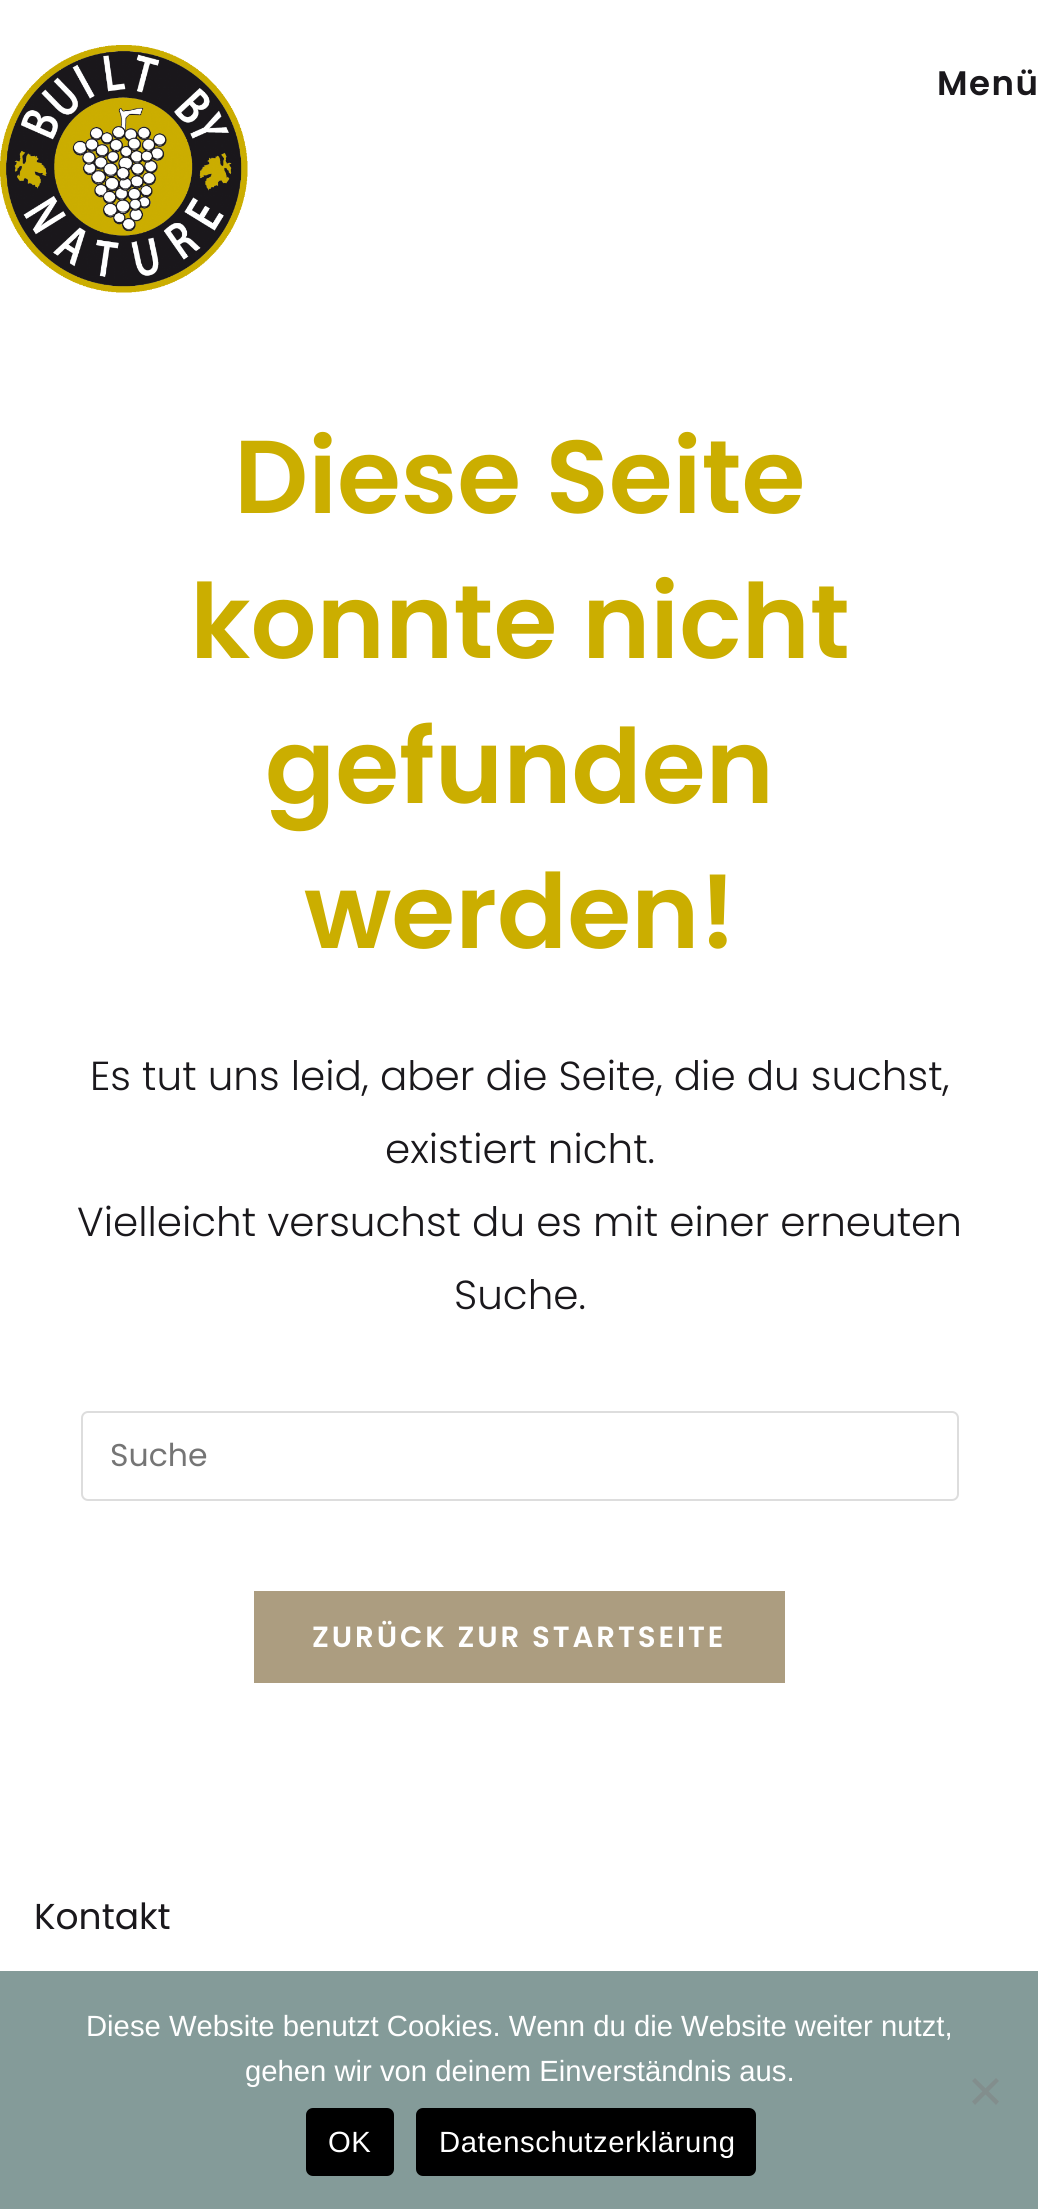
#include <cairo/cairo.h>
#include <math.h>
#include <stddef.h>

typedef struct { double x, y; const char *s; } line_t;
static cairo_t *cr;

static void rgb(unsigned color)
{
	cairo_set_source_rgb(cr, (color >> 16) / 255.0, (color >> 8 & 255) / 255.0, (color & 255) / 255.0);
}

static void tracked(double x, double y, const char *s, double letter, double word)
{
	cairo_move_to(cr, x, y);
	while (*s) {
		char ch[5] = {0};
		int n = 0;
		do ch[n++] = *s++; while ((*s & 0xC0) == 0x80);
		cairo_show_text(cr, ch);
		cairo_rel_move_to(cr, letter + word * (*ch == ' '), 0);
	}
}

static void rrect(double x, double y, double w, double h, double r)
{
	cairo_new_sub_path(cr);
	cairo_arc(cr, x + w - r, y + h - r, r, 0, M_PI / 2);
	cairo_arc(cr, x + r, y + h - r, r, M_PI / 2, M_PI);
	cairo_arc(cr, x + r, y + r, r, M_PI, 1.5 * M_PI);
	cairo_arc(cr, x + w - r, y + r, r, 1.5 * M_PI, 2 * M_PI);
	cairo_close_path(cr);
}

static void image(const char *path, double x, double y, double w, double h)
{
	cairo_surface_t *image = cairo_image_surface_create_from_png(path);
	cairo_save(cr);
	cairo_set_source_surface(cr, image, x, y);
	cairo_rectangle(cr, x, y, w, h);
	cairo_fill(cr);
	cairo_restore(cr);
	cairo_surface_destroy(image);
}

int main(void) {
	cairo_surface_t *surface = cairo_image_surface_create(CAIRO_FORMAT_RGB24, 1038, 2209);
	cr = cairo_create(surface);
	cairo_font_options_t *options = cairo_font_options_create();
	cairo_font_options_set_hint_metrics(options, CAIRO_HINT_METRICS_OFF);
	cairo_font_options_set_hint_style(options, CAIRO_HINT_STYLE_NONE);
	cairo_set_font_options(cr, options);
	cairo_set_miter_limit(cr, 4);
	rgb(0xffffff);
	cairo_paint(cr);
	image("img/1.png", 0, 45, 248, 248);
	rrect(82, 1412, 876, 88, 6);
	rgb(0xdddddd);
	cairo_stroke(cr);
	rgb(0xac9d80);
	cairo_rectangle(cr, 254, 1591, 531, 92);
	cairo_fill(cr);
	rgb(0x849b99);
	cairo_rectangle(cr, 0, 1971, 1038, 238);
	cairo_fill(cr);
	rgb(0x828e8d);
	cairo_new_path(cr);
	cairo_move_to(cr, 996, 2078);
	cairo_line_to(cr, 999, 2081);
	cairo_line_to(cr, 975, 2105);
	cairo_line_to(cr, 972, 2101.5);
	cairo_close_path(cr);
	cairo_fill(cr);
	cairo_new_path(cr);
	cairo_move_to(cr, 972, 2081);
	cairo_line_to(cr, 975, 2078);
	cairo_line_to(cr, 999, 2101.5);
	cairo_line_to(cr, 996, 2105);
	cairo_close_path(cr);
	cairo_fill(cr);
	rgb(0x000000);
	rrect(306, 2108, 88, 68, 7);
	cairo_fill(cr);
	rrect(416, 2108, 340, 68, 7);
	cairo_fill(cr);
	cairo_select_font_face(cr, "Poppins SemiBold", CAIRO_FONT_SLANT_NORMAL, CAIRO_FONT_WEIGHT_NORMAL);
	cairo_set_font_size(cr, 34);
	rgb(0x1a181c);
	tracked(937, 95, "Menü", 1.5, 0);
	cairo_set_font_size(cr, 103.5);
	rgb(0xcbae00);
	{
		static const line_t items[] = {
			{234, 513, "Diese Seite"},
			{190, 658, "konnte nicht"},
			{265, 803, "gefunden"},
			{304, 948, "werden!"},
		};
		for (size_t i = 0; i < sizeof items / sizeof *items; i++) {
			cairo_move_to(cr, items[i].x, items[i].y);
			cairo_show_text(cr, items[i].s);
		}
	}
	cairo_select_font_face(cr, "Poppins Light", CAIRO_FONT_SLANT_NORMAL, CAIRO_FONT_WEIGHT_NORMAL);
	cairo_set_font_size(cr, 40.5);
	rgb(0x1a181c);
	{
		static const line_t items[] = {
			{90, 1090, "Es tut uns leid, aber die Seite, die du suchst,"},
			{385, 1163, "existiert nicht."},
			{77, 1236, "Vielleicht versuchst du es mit einer erneuten"},
			{454, 1309, "Suche."},
		};
		for (size_t i = 0; i < sizeof items / sizeof *items; i++) {
			cairo_move_to(cr, items[i].x, items[i].y);
			cairo_show_text(cr, items[i].s);
		}
	}
	cairo_select_font_face(cr, "Poppins", CAIRO_FONT_SLANT_NORMAL, CAIRO_FONT_WEIGHT_NORMAL);
	cairo_set_font_size(cr, 31.5);
	rgb(0x757575);
	cairo_move_to(cr, 110, 1466);
	cairo_show_text(cr, "Suche");
	cairo_select_font_face(cr, "Poppins SemiBold", CAIRO_FONT_SLANT_NORMAL, CAIRO_FONT_WEIGHT_NORMAL);
	cairo_set_font_size(cr, 29.25);
	rgb(0xffffff);
	tracked(312, 1647, "ZURÜCK ZUR STARTSEITE", 2.9, 0);
	cairo_select_font_face(cr, "Poppins", CAIRO_FONT_SLANT_NORMAL, CAIRO_FONT_WEIGHT_NORMAL);
	cairo_set_font_size(cr, 36);
	rgb(0x1a181c);
	cairo_move_to(cr, 34, 1929);
	cairo_show_text(cr, "Kontakt");
	cairo_select_font_face(cr, "Liberation Sans", CAIRO_FONT_SLANT_NORMAL, CAIRO_FONT_WEIGHT_NORMAL);
	cairo_set_font_size(cr, 29.25);
	rgb(0xffffff);
	cairo_move_to(cr, 86, 2036);
	cairo_show_text(cr, "Diese Website benutzt Cookies. Wenn du die Website weiter nutzt,");
	cairo_move_to(cr, 245, 2081);
	cairo_show_text(cr, "gehen wir von deinem Einverständnis aus.");
	tracked(328, 2152, "OK", 0.6, 0);
	tracked(439, 2152, "Datenschutzerklärung", 0.6, 0);
	cairo_surface_write_to_png(surface, "page.png");
	cairo_font_options_destroy(options);
	cairo_destroy(cr);
	cairo_surface_destroy(surface);
	return 0;
}
